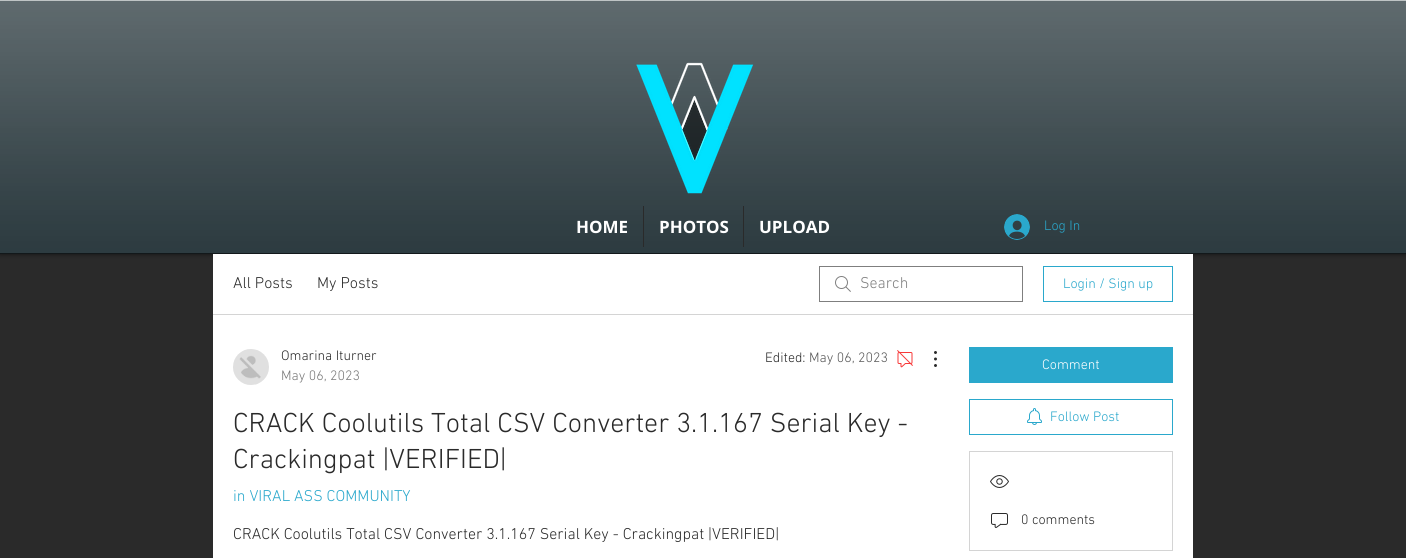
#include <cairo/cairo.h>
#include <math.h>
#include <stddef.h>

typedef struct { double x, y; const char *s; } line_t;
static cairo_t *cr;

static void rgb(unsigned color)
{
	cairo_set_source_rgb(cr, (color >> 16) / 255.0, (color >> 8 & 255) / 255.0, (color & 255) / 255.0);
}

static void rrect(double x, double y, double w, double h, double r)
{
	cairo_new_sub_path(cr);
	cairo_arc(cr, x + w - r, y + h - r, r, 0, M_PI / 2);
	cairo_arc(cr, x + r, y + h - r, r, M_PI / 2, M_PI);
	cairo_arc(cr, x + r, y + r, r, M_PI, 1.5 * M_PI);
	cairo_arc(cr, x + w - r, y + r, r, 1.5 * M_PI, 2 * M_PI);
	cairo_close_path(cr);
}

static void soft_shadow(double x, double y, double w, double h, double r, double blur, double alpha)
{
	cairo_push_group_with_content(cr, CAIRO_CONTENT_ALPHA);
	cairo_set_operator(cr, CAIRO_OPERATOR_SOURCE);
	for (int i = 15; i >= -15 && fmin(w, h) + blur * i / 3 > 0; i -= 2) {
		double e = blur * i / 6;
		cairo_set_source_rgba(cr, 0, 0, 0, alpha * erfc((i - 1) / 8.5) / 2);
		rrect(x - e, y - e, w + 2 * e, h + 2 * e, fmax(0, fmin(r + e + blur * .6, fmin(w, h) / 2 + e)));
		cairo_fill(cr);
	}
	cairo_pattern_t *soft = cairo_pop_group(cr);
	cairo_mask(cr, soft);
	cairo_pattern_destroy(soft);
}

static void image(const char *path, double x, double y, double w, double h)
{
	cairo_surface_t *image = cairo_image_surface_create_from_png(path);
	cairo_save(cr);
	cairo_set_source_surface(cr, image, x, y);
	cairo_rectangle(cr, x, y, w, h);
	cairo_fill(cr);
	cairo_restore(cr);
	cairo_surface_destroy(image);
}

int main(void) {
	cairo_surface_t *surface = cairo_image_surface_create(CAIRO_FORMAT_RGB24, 1406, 558);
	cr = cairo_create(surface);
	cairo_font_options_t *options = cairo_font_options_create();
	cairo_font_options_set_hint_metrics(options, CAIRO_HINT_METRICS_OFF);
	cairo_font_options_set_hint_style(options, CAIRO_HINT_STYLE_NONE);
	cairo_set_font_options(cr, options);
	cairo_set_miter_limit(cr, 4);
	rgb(0x2a2a2a);
	cairo_paint(cr);
	rgb(0x000000);
	soft_shadow(0, 0, 1406, 254, 0, 2.5, 0.6);
	rgb(0x28373c);
	cairo_rectangle(cr, 0, 1, 1406, 252);
	cairo_fill(cr);
	image("img/1.png", 0, 1, 1406, 252);
	rgb(0x12181a);
	cairo_rectangle(cr, 0, 253, 1406, 1);
	cairo_fill(cr);
	rgb(0xbfc4c5);
	cairo_rectangle(cr, 0, 0, 1406, 1);
	cairo_fill(cr);
	image("img/2.png", 636, 62, 118, 132);
	rgb(0x2a2a2a);
	cairo_rectangle(cr, 643, 206, 1, 41);
	cairo_fill(cr);
	cairo_rectangle(cr, 743, 206, 1, 41);
	cairo_fill(cr);
	image("img/3.png", 1004, 214, 26, 26);
	rgb(0xffffff);
	cairo_rectangle(cr, 213, 254, 980, 304);
	cairo_fill(cr);
	rgb(0xd4d4d4);
	cairo_rectangle(cr, 213, 314, 980, 1);
	cairo_fill(cr);
	image("img/4.png", 835, 276, 16, 16);
	cairo_rectangle(cr, 819.5, 266.5, 203, 35);
	rgb(0x7f7f7f);
	cairo_set_line_width(cr, 1);
	cairo_stroke(cr);
	cairo_rectangle(cr, 1043.5, 266.5, 129, 35);
	rgb(0x2aa8cc);
	cairo_stroke(cr);
	image("img/5.png", 233, 349, 36, 36);
	image("img/6.png", 897, 350, 16, 18);
	image("img/7.png", 934, 351, 3, 16);
	cairo_rectangle(cr, 969, 347, 204, 36);
	cairo_fill(cr);
	cairo_rectangle(cr, 969.5, 399.5, 203, 35);
	cairo_stroke(cr);
	image("img/8.png", 1027, 408, 15, 17);
	cairo_rectangle(cr, 969.5, 451.5, 203, 99);
	rgb(0xd4d4d4);
	cairo_stroke(cr);
	image("img/9.png", 990, 475, 19, 13);
	image("img/10.png", 991, 513, 17, 15);
	cairo_select_font_face(cr, "Open Sans", CAIRO_FONT_SLANT_NORMAL, CAIRO_FONT_WEIGHT_BOLD);
	cairo_set_font_size(cr, 17);
	rgb(0xffffff);
	{
		static const line_t items[] = {
			{576, 233, "HOME"},
			{659, 233, "PHOTOS"},
			{759, 233, "UPLOAD"},
		};
		for (size_t i = 0; i < sizeof items / sizeof *items; i++) {
			cairo_move_to(cr, items[i].x, items[i].y);
			cairo_show_text(cr, items[i].s);
		}
	}
	cairo_select_font_face(cr, "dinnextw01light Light", CAIRO_FONT_SLANT_NORMAL, CAIRO_FONT_WEIGHT_NORMAL);
	cairo_set_font_size(cr, 14);
	rgb(0x2aa8cc);
	cairo_move_to(cr, 1044, 230);
	cairo_show_text(cr, "Log In");
	cairo_set_font_size(cr, 16);
	rgb(0x2a2a2a);
	cairo_move_to(cr, 233, 288);
	cairo_show_text(cr, "All Posts");
	cairo_move_to(cr, 317, 288);
	cairo_show_text(cr, "My Posts");
	rgb(0x7f7f7f);
	cairo_move_to(cr, 860, 288);
	cairo_show_text(cr, "Search");
	cairo_set_font_size(cr, 14);
	rgb(0x2aa8cc);
	cairo_move_to(cr, 1063, 288);
	cairo_show_text(cr, "Login / Sign up");
	rgb(0x2a2a2a);
	cairo_move_to(cr, 281, 360);
	cairo_show_text(cr, "Omarina Iturner");
	rgb(0x777777);
	cairo_move_to(cr, 281, 380);
	cairo_show_text(cr, "May 06, 2023");
	rgb(0x2a2a2a);
	cairo_move_to(cr, 765, 362);
	cairo_show_text(cr, "Edited:");
	rgb(0x555555);
	cairo_move_to(cr, 809, 362);
	cairo_show_text(cr, "May 06, 2023");
	cairo_set_font_size(cr, 28);
	rgb(0x2a2a2a);
	cairo_move_to(cr, 233, 432);
	cairo_show_text(cr, "CRACK Coolutils Total CSV Converter 3.1.167 Serial Key -");
	cairo_move_to(cr, 233, 468);
	cairo_show_text(cr, "Crackingpat |VERIFIED|");
	cairo_set_font_size(cr, 16);
	rgb(0x2aa8cc);
	cairo_move_to(cr, 233, 501);
	cairo_show_text(cr, "in VIRAL ASS COMMUNITY");
	rgb(0x2a2a2a);
	cairo_move_to(cr, 233, 539);
	cairo_show_text(cr, "CRACK Coolutils Total CSV Converter 3.1.167 Serial Key - Crackingpat |VERIFIED|");
	cairo_set_font_size(cr, 14);
	rgb(0xffffff);
	cairo_move_to(cr, 1042, 369);
	cairo_show_text(cr, "Comment");
	rgb(0x2aa8cc);
	cairo_move_to(cr, 1050, 421);
	cairo_show_text(cr, "Follow Post");
	rgb(0x2a2a2a);
	cairo_move_to(cr, 1021, 524);
	cairo_show_text(cr, "0 comments");
	cairo_surface_write_to_png(surface, "page.png");
	cairo_font_options_destroy(options);
	cairo_destroy(cr);
	cairo_surface_destroy(surface);
	return 0;
}
